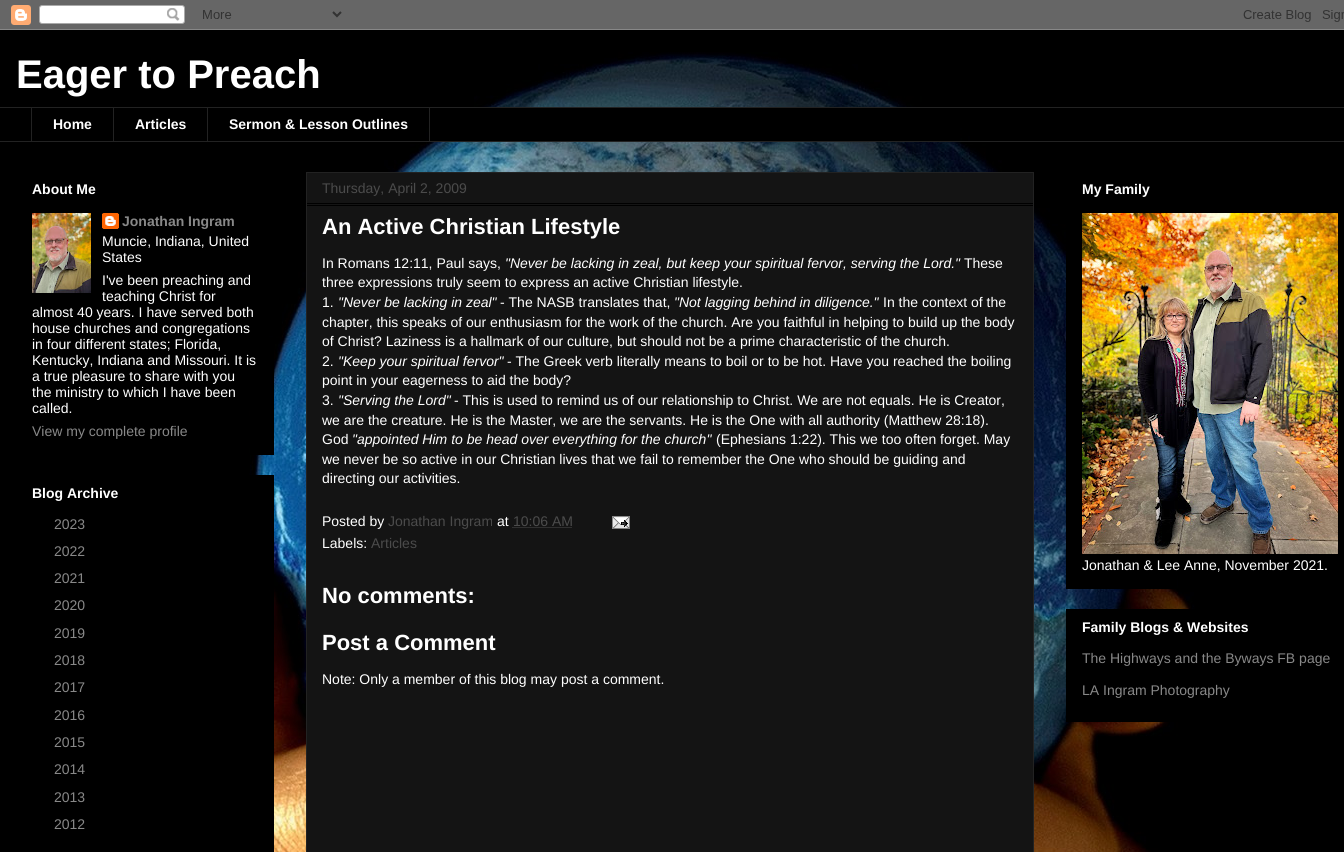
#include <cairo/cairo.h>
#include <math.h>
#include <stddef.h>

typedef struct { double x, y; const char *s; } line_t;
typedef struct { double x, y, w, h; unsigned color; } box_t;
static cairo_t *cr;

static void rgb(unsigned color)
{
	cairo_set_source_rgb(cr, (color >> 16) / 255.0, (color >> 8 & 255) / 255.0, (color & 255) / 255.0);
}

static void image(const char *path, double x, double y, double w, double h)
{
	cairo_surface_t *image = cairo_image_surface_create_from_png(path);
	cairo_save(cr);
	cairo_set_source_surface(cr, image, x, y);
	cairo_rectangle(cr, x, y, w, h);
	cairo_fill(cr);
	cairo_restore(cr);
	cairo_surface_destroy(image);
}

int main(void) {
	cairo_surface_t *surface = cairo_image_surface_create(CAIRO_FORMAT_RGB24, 1344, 852);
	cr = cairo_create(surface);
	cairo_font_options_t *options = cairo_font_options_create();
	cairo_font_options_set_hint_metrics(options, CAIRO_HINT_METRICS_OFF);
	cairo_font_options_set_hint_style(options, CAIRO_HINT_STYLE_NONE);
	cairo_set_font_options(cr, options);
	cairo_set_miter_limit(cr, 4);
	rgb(0x000000);
	cairo_paint(cr);
	image("img/1.png", 122, 52, 1074, 800);
	image("img/2.png", 0, 0, 1344, 30);
	{
		static const box_t items[] = {
			{429, 108, 531, 33, 0x000000},
			{0, 107, 1344, 1, 0x222222},
			{31, 107, 1, 35, 0x222222},
			{113, 107, 1, 35, 0x222222},
		};
		for (size_t i = 0; i < sizeof items / sizeof *items; i++) {
			rgb(items[i].color);
			cairo_rectangle(cr, items[i].x, items[i].y, items[i].w, items[i].h);
			cairo_fill(cr);
		}
	}
	cairo_rectangle(cr, 207.5, 107.5, 222, 34);
	cairo_set_line_width(cr, 1);
	cairo_stroke(cr);
	cairo_rectangle(cr, 0, 141, 1344, 1);
	cairo_fill(cr);
	rgb(0x000000);
	cairo_rectangle(cr, 250, 337, 24, 118);
	cairo_fill(cr);
	image("img/3.png", 32, 213, 59, 80);
	image("img/4.png", 102, 213, 17, 16);
	cairo_rectangle(cr, 122, 475, 152, 377);
	cairo_fill(cr);
	rgb(0x141414);
	cairo_rectangle(cr, 306.5, 172.5, 727, 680);
	cairo_fill_preserve(cr);
	rgb(0x222222);
	cairo_stroke(cr);
	rgb(0x000000);
	cairo_rectangle(cr, 307, 203, 726, 1);
	cairo_fill(cr);
	cairo_rectangle(cr, 307, 205, 726, 1);
	cairo_fill(cr);
	cairo_new_path(cr);
	cairo_move_to(cr, 512.5, 527.5);
	cairo_line_to(cr, 572.5, 527.5);
	rgb(0x4b4b4b);
	cairo_set_dash(cr, (double[]){1, 1}, 2, 0);
	cairo_stroke(cr);
	image("img/5.png", 612, 516, 18, 13);
	rgb(0x000000);
	cairo_rectangle(cr, 1066, 253, 111, 336);
	cairo_fill(cr);
	image("img/6.png", 1082, 213, 256, 341);
	cairo_rectangle(cr, 1066, 609, 130, 113);
	cairo_fill(cr);
	cairo_select_font_face(cr, "Liberation Sans", CAIRO_FONT_SLANT_NORMAL, CAIRO_FONT_WEIGHT_BOLD);
	cairo_set_font_size(cr, 40);
	rgb(0xffffff);
	cairo_move_to(cr, 16, 88);
	cairo_show_text(cr, "Eager to Preach");
	cairo_set_font_size(cr, 14);
	{
		static const line_t items[] = {
			{53, 129, "Home"},
			{135, 129, "Articles"},
			{229, 129, "Sermon & Lesson Outlines"},
			{32, 194, "About Me"},
		};
		for (size_t i = 0; i < sizeof items / sizeof *items; i++) {
			cairo_move_to(cr, items[i].x, items[i].y);
			cairo_show_text(cr, items[i].s);
		}
	}
	rgb(0x888888);
	cairo_move_to(cr, 122, 226);
	cairo_show_text(cr, "Jonathan Ingram");
	cairo_select_font_face(cr, "Liberation Sans", CAIRO_FONT_SLANT_NORMAL, CAIRO_FONT_WEIGHT_NORMAL);
	rgb(0xffffff);
	{
		static const line_t items[] = {
			{102, 246, "Muncie, Indiana, United"},
			{102, 262, "States"},
			{102, 285, "I've been preaching and"},
			{102, 301, "teaching Christ for"},
			{32, 317, "almost 40 years. I have served both"},
			{32, 333, "house churches and congregations"},
			{32, 349, "in four different states; Florida,"},
			{32, 365, "Kentucky, Indiana and Missouri. It is"},
			{32, 381, "a true pleasure to share with you"},
			{32, 397, "the ministry to which I have been"},
			{32, 413, "called."},
		};
		for (size_t i = 0; i < sizeof items / sizeof *items; i++) {
			cairo_move_to(cr, items[i].x, items[i].y);
			cairo_show_text(cr, items[i].s);
		}
	}
	rgb(0x888888);
	cairo_move_to(cr, 32, 436);
	cairo_show_text(cr, "View my complete profile");
	cairo_select_font_face(cr, "Liberation Sans", CAIRO_FONT_SLANT_NORMAL, CAIRO_FONT_WEIGHT_BOLD);
	rgb(0xffffff);
	cairo_move_to(cr, 32, 498);
	cairo_show_text(cr, "Blog Archive");
	cairo_select_font_face(cr, "Liberation Sans", CAIRO_FONT_SLANT_NORMAL, CAIRO_FONT_WEIGHT_NORMAL);
	rgb(0x888888);
	{
		static const line_t items[] = {
			{54, 529, "2023"},
			{54, 556, "2022"},
			{54, 583, "2021"},
			{54, 610, "2020"},
			{54, 638, "2019"},
			{54, 665, "2018"},
			{54, 692, "2017"},
			{54, 720, "2016"},
			{54, 747, "2015"},
			{54, 774, "2014"},
			{54, 802, "2013"},
			{54, 829, "2012"},
		};
		for (size_t i = 0; i < sizeof items / sizeof *items; i++) {
			cairo_move_to(cr, items[i].x, items[i].y);
			cairo_show_text(cr, items[i].s);
		}
	}
	rgb(0x4b4b4b);
	cairo_move_to(cr, 322, 193);
	cairo_show_text(cr, "Thursday, April 2, 2009");
	cairo_select_font_face(cr, "Liberation Sans", CAIRO_FONT_SLANT_NORMAL, CAIRO_FONT_WEIGHT_BOLD);
	cairo_set_font_size(cr, 22);
	rgb(0xffffff);
	cairo_move_to(cr, 322, 234);
	cairo_show_text(cr, "An Active Christian Lifestyle");
	cairo_select_font_face(cr, "Liberation Sans", CAIRO_FONT_SLANT_NORMAL, CAIRO_FONT_WEIGHT_NORMAL);
	cairo_set_font_size(cr, 14);
	cairo_move_to(cr, 322, 268);
	cairo_show_text(cr, "In Romans 12:11, Paul says,");
	cairo_select_font_face(cr, "Liberation Sans", CAIRO_FONT_SLANT_ITALIC, CAIRO_FONT_WEIGHT_NORMAL);
	cairo_move_to(cr, 505, 268);
	cairo_show_text(cr, "\"Never be lacking in zeal, but keep your spiritual fervor, serving the Lord.\"");
	cairo_select_font_face(cr, "Liberation Sans", CAIRO_FONT_SLANT_NORMAL, CAIRO_FONT_WEIGHT_NORMAL);
	{
		static const line_t items[] = {
			{964, 268, "These"},
			{322, 287, "three expressions truly seem to express an active Christian lifestyle."},
			{322, 307, "1."},
		};
		for (size_t i = 0; i < sizeof items / sizeof *items; i++) {
			cairo_move_to(cr, items[i].x, items[i].y);
			cairo_show_text(cr, items[i].s);
		}
	}
	cairo_select_font_face(cr, "Liberation Sans", CAIRO_FONT_SLANT_ITALIC, CAIRO_FONT_WEIGHT_NORMAL);
	cairo_move_to(cr, 338, 307);
	cairo_show_text(cr, "\"Never be lacking in zeal\"");
	cairo_select_font_face(cr, "Liberation Sans", CAIRO_FONT_SLANT_NORMAL, CAIRO_FONT_WEIGHT_NORMAL);
	cairo_move_to(cr, 500, 307);
	cairo_show_text(cr, "- The NASB translates that,");
	cairo_select_font_face(cr, "Liberation Sans", CAIRO_FONT_SLANT_ITALIC, CAIRO_FONT_WEIGHT_NORMAL);
	cairo_move_to(cr, 674, 307);
	cairo_show_text(cr, "\"Not lagging behind in diligence.\"");
	cairo_select_font_face(cr, "Liberation Sans", CAIRO_FONT_SLANT_NORMAL, CAIRO_FONT_WEIGHT_NORMAL);
	{
		static const line_t items[] = {
			{883, 307, "In the context of the"},
			{322, 327, "chapter, this speaks of our enthusiasm for the work of the church. Are you faithful in helping to build up the body"},
			{322, 346, "of Christ? Laziness is a hallmark of our culture, but should not be a prime characteristic of the church."},
			{322, 366, "2."},
		};
		for (size_t i = 0; i < sizeof items / sizeof *items; i++) {
			cairo_move_to(cr, items[i].x, items[i].y);
			cairo_show_text(cr, items[i].s);
		}
	}
	cairo_select_font_face(cr, "Liberation Sans", CAIRO_FONT_SLANT_ITALIC, CAIRO_FONT_WEIGHT_NORMAL);
	cairo_move_to(cr, 338, 366);
	cairo_show_text(cr, "\"Keep your spiritual fervor\"");
	cairo_select_font_face(cr, "Liberation Sans", CAIRO_FONT_SLANT_NORMAL, CAIRO_FONT_WEIGHT_NORMAL);
	{
		static const line_t items[] = {
			{507, 366, "- The Greek verb literally means to boil or to be hot. Have you reached the boiling"},
			{322, 385, "point in your eagerness to aid the body?"},
			{322, 405, "3."},
		};
		for (size_t i = 0; i < sizeof items / sizeof *items; i++) {
			cairo_move_to(cr, items[i].x, items[i].y);
			cairo_show_text(cr, items[i].s);
		}
	}
	cairo_select_font_face(cr, "Liberation Sans", CAIRO_FONT_SLANT_ITALIC, CAIRO_FONT_WEIGHT_NORMAL);
	cairo_move_to(cr, 338, 405);
	cairo_show_text(cr, "\"Serving the Lord\"");
	cairo_select_font_face(cr, "Liberation Sans", CAIRO_FONT_SLANT_NORMAL, CAIRO_FONT_WEIGHT_NORMAL);
	{
		static const line_t items[] = {
			{454, 405, "- This is used to remind us of our relationship to Christ. We are not equals. He is Creator,"},
			{322, 425, "we are the creature. He is the Master, we are the servants. He is the One with all authority (Matthew 28:18)."},
			{322, 444, "God"},
		};
		for (size_t i = 0; i < sizeof items / sizeof *items; i++) {
			cairo_move_to(cr, items[i].x, items[i].y);
			cairo_show_text(cr, items[i].s);
		}
	}
	cairo_select_font_face(cr, "Liberation Sans", CAIRO_FONT_SLANT_ITALIC, CAIRO_FONT_WEIGHT_NORMAL);
	cairo_move_to(cr, 352, 444);
	cairo_show_text(cr, "\"appointed Him to be head over everything for the church\"");
	cairo_select_font_face(cr, "Liberation Sans", CAIRO_FONT_SLANT_NORMAL, CAIRO_FONT_WEIGHT_NORMAL);
	{
		static const line_t items[] = {
			{716, 444, "(Ephesians 1:22). This we too often forget. May"},
			{322, 464, "we never be so active in our Christian lives that we fail to remember the One who should be guiding and"},
			{322, 483, "directing our activities."},
			{322, 526, "Posted by"},
		};
		for (size_t i = 0; i < sizeof items / sizeof *items; i++) {
			cairo_move_to(cr, items[i].x, items[i].y);
			cairo_show_text(cr, items[i].s);
		}
	}
	rgb(0x4b4b4b);
	cairo_move_to(cr, 388, 526);
	cairo_show_text(cr, "Jonathan Ingram");
	rgb(0xffffff);
	cairo_move_to(cr, 497, 526);
	cairo_show_text(cr, "at");
	rgb(0x4b4b4b);
	cairo_move_to(cr, 513, 526);
	cairo_show_text(cr, "10:06 AM");
	rgb(0xffffff);
	cairo_move_to(cr, 322, 548);
	cairo_show_text(cr, "Labels:");
	rgb(0x4b4b4b);
	cairo_move_to(cr, 371, 548);
	cairo_show_text(cr, "Articles");
	cairo_select_font_face(cr, "Liberation Sans", CAIRO_FONT_SLANT_NORMAL, CAIRO_FONT_WEIGHT_BOLD);
	cairo_set_font_size(cr, 22);
	rgb(0xffffff);
	cairo_move_to(cr, 322, 603);
	cairo_show_text(cr, "No comments:");
	cairo_move_to(cr, 322, 650);
	cairo_show_text(cr, "Post a Comment");
	cairo_select_font_face(cr, "Liberation Sans", CAIRO_FONT_SLANT_NORMAL, CAIRO_FONT_WEIGHT_NORMAL);
	cairo_set_font_size(cr, 14);
	cairo_move_to(cr, 322, 684);
	cairo_show_text(cr, "Note: Only a member of this blog may post a comment.");
	cairo_select_font_face(cr, "Liberation Sans", CAIRO_FONT_SLANT_NORMAL, CAIRO_FONT_WEIGHT_BOLD);
	cairo_move_to(cr, 1082, 194);
	cairo_show_text(cr, "My Family");
	cairo_select_font_face(cr, "Liberation Sans", CAIRO_FONT_SLANT_NORMAL, CAIRO_FONT_WEIGHT_NORMAL);
	cairo_move_to(cr, 1082, 570);
	cairo_show_text(cr, "Jonathan & Lee Anne, November 2021.");
	cairo_select_font_face(cr, "Liberation Sans", CAIRO_FONT_SLANT_NORMAL, CAIRO_FONT_WEIGHT_BOLD);
	cairo_move_to(cr, 1082, 632);
	cairo_show_text(cr, "Family Blogs & Websites");
	cairo_select_font_face(cr, "Liberation Sans", CAIRO_FONT_SLANT_NORMAL, CAIRO_FONT_WEIGHT_NORMAL);
	rgb(0x888888);
	cairo_move_to(cr, 1082, 663);
	cairo_show_text(cr, "The Highways and the Byways FB page");
	cairo_move_to(cr, 1082, 695);
	cairo_show_text(cr, "LA Ingram Photography");
	cairo_surface_write_to_png(surface, "page.png");
	cairo_font_options_destroy(options);
	cairo_destroy(cr);
	cairo_surface_destroy(surface);
	return 0;
}
